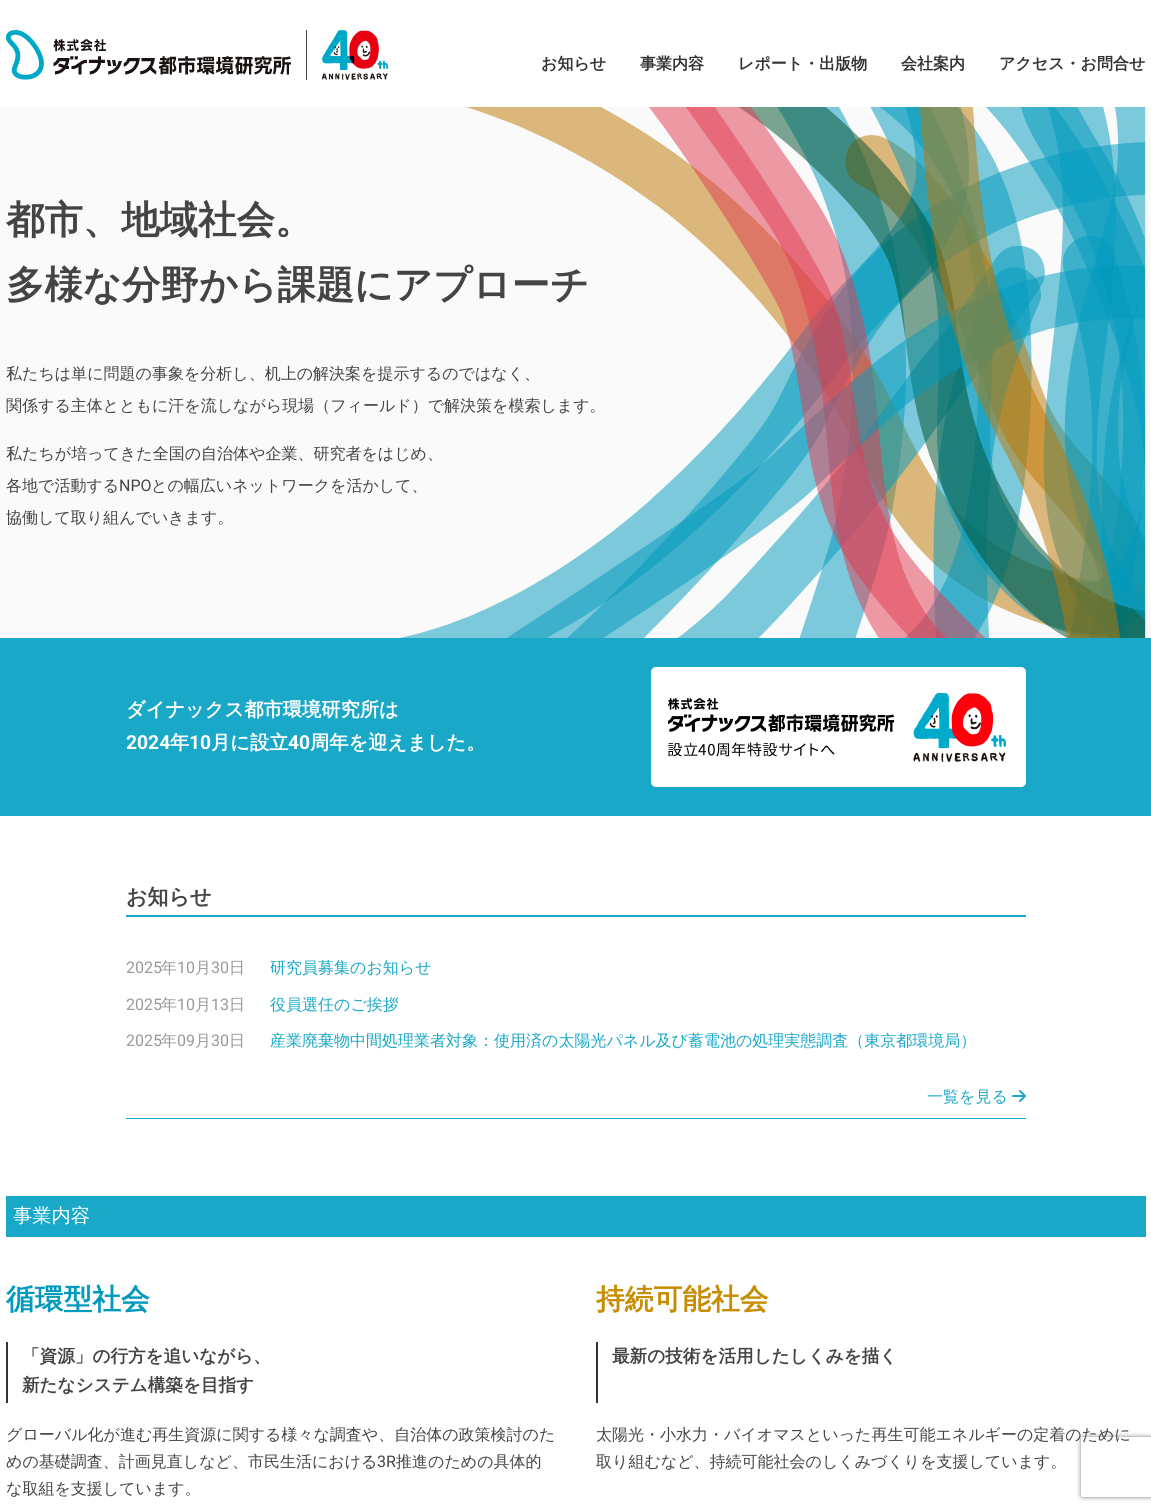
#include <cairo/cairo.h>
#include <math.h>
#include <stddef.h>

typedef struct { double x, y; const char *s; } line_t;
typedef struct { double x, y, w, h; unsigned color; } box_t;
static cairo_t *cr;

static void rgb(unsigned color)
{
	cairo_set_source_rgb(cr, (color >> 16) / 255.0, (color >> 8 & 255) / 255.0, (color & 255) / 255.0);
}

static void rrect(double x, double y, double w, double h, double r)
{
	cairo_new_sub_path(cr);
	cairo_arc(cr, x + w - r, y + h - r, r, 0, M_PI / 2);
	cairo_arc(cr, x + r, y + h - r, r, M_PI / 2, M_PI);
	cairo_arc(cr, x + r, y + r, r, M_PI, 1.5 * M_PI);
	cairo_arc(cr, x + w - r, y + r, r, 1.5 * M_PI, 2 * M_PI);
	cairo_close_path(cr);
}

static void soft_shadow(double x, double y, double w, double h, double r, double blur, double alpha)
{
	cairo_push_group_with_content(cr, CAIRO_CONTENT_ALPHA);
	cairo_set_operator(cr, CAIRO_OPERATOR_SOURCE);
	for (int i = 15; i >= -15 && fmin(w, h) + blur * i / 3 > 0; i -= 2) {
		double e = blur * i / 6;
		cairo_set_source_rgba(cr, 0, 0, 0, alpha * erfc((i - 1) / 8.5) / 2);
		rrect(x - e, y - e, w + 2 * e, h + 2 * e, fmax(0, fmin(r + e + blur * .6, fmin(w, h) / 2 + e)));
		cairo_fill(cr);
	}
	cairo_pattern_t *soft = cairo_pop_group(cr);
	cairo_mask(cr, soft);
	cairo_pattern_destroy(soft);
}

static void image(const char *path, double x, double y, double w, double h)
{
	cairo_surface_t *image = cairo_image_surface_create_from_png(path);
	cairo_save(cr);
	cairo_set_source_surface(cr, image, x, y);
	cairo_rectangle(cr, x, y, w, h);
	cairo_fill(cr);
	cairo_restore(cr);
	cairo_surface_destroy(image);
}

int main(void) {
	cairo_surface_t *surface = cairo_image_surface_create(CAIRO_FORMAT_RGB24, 1151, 1511);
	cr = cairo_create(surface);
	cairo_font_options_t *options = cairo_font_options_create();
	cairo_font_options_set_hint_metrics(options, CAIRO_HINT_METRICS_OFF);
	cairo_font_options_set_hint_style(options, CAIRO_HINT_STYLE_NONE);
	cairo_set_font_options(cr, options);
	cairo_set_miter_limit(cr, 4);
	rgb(0xffffff);
	cairo_paint(cr);
	image("img/1.png", 6, 30, 285, 50);
	rgb(0x444444);
	cairo_rectangle(cr, 306, 30, 1, 50);
	cairo_fill(cr);
	image("img/2.png", 322, 30, 66, 50);
	rgb(0xfafafa);
	cairo_rectangle(cr, 0, 107, 1151, 531);
	cairo_fill(cr);
	image("img/3.png", 400, 107, 746, 531);
	rgb(0x1aa8c8);
	cairo_rectangle(cr, 0, 638, 1151, 178);
	cairo_fill(cr);
	image("img/4.png", 651, 667, 375, 120);
	cairo_rectangle(cr, 126, 915, 900, 2);
	cairo_fill(cr);
	cairo_rectangle(cr, 126, 1118, 900, 1);
	cairo_fill(cr);
	image("img/5.png", 1012, 1090, 14, 12);
	{
		static const box_t items[] = {
			{6, 1196, 1140, 41, 0x1aa8c8},
			{6, 1342, 2, 61, 0x333333},
			{596, 1342, 2, 61, 0x333333},
		};
		for (size_t i = 0; i < sizeof items / sizeof *items; i++) {
			rgb(items[i].color);
			cairo_rectangle(cr, items[i].x, items[i].y, items[i].w, items[i].h);
			cairo_fill(cr);
		}
	}
	cairo_save(cr);
	cairo_set_fill_rule(cr, CAIRO_FILL_RULE_EVEN_ODD);
	cairo_new_path(cr);
	cairo_move_to(cr, 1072, 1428);
	cairo_line_to(cr, 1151, 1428);
	cairo_line_to(cr, 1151, 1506);
	cairo_line_to(cr, 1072, 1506);
	cairo_close_path(cr);
	cairo_move_to(cr, 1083, 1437);
	cairo_line_to(cr, 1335, 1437);
	cairo_curve_to(cr, 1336, 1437, 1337, 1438, 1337, 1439);
	cairo_line_to(cr, 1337, 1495);
	cairo_curve_to(cr, 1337, 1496, 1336, 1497, 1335, 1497);
	cairo_line_to(cr, 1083, 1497);
	cairo_curve_to(cr, 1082, 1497, 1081, 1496, 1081, 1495);
	cairo_line_to(cr, 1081, 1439);
	cairo_curve_to(cr, 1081, 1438, 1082, 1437, 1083, 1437);
	cairo_close_path(cr);
	cairo_clip(cr);
	rgb(0x808080);
	soft_shadow(1081, 1437, 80, 60, 2, 2.5, 1);
	cairo_restore(cr);
	cairo_select_font_face(cr, "WenQuanYi Zen Hei", CAIRO_FONT_SLANT_NORMAL, CAIRO_FONT_WEIGHT_BOLD);
	cairo_set_font_size(cr, 16);
	{
		static const line_t items[] = {
			{541, 69, "お知らせ"},
			{640, 69, "事業内容"},
			{738, 69, "レポート・出版物"},
			{901, 69, "会社案内"},
			{999, 69, "アクセス・お問合せ"},
		};
		for (size_t i = 0; i < sizeof items / sizeof *items; i++) {
			cairo_move_to(cr, items[i].x, items[i].y);
			cairo_show_text(cr, items[i].s);
		}
	}
	cairo_set_font_size(cr, 38.4);
	rgb(0x444444);
	cairo_move_to(cr, 6, 233);
	cairo_show_text(cr, "都市、地域社会。");
	cairo_move_to(cr, 6, 298);
	cairo_show_text(cr, "多様な分野から課題にアプローチ");
	cairo_select_font_face(cr, "WenQuanYi Zen Hei Medium", CAIRO_FONT_SLANT_NORMAL, CAIRO_FONT_WEIGHT_NORMAL);
	cairo_set_font_size(cr, 16);
	{
		static const line_t items[] = {
			{6, 379, "私たちは単に問題の事象を分析し、机上の解決案を提示するのではなく、"},
			{6, 411, "関係する主体とともに汗を流しながら現場（フィールド）で解決策を模索します。"},
			{6, 459, "私たちが培ってきた全国の自治体や企業、研究者をはじめ、"},
			{6, 491, "各地で活動する"},
		};
		for (size_t i = 0; i < sizeof items / sizeof *items; i++) {
			cairo_move_to(cr, items[i].x, items[i].y);
			cairo_show_text(cr, items[i].s);
		}
	}
	cairo_select_font_face(cr, "Roboto", CAIRO_FONT_SLANT_NORMAL, CAIRO_FONT_WEIGHT_NORMAL);
	cairo_move_to(cr, 119, 491);
	cairo_show_text(cr, "NPO");
	cairo_select_font_face(cr, "WenQuanYi Zen Hei Medium", CAIRO_FONT_SLANT_NORMAL, CAIRO_FONT_WEIGHT_NORMAL);
	cairo_move_to(cr, 151, 491);
	cairo_show_text(cr, "との幅広いネットワークを活かして、");
	cairo_move_to(cr, 6, 523);
	cairo_show_text(cr, "協働して取り組んでいきます。");
	cairo_select_font_face(cr, "WenQuanYi Zen Hei", CAIRO_FONT_SLANT_NORMAL, CAIRO_FONT_WEIGHT_BOLD);
	cairo_set_font_size(cr, 19.25);
	rgb(0xffffff);
	cairo_move_to(cr, 126, 716);
	cairo_show_text(cr, "ダイナックス都市環境研究所は");
	cairo_select_font_face(cr, "Roboto", CAIRO_FONT_SLANT_NORMAL, CAIRO_FONT_WEIGHT_BOLD);
	cairo_move_to(cr, 126, 749);
	cairo_show_text(cr, "2024");
	cairo_select_font_face(cr, "WenQuanYi Zen Hei", CAIRO_FONT_SLANT_NORMAL, CAIRO_FONT_WEIGHT_BOLD);
	cairo_move_to(cr, 170, 749);
	cairo_show_text(cr, "年");
	cairo_select_font_face(cr, "Roboto", CAIRO_FONT_SLANT_NORMAL, CAIRO_FONT_WEIGHT_BOLD);
	cairo_move_to(cr, 189, 749);
	cairo_show_text(cr, "10");
	cairo_select_font_face(cr, "WenQuanYi Zen Hei", CAIRO_FONT_SLANT_NORMAL, CAIRO_FONT_WEIGHT_BOLD);
	cairo_move_to(cr, 211, 749);
	cairo_show_text(cr, "月に設立");
	cairo_select_font_face(cr, "Roboto", CAIRO_FONT_SLANT_NORMAL, CAIRO_FONT_WEIGHT_BOLD);
	cairo_move_to(cr, 288, 749);
	cairo_show_text(cr, "40");
	cairo_select_font_face(cr, "WenQuanYi Zen Hei", CAIRO_FONT_SLANT_NORMAL, CAIRO_FONT_WEIGHT_BOLD);
	cairo_move_to(cr, 310, 749);
	cairo_show_text(cr, "周年を迎えました。");
	cairo_set_font_size(cr, 21);
	rgb(0x444444);
	cairo_move_to(cr, 126, 904);
	cairo_show_text(cr, "お知らせ");
	cairo_select_font_face(cr, "Roboto", CAIRO_FONT_SLANT_NORMAL, CAIRO_FONT_WEIGHT_NORMAL);
	cairo_set_font_size(cr, 16);
	rgb(0x999999);
	cairo_move_to(cr, 126, 973);
	cairo_show_text(cr, "2025");
	cairo_select_font_face(cr, "WenQuanYi Zen Hei Medium", CAIRO_FONT_SLANT_NORMAL, CAIRO_FONT_WEIGHT_NORMAL);
	cairo_move_to(cr, 161, 973);
	cairo_show_text(cr, "年");
	cairo_select_font_face(cr, "Roboto", CAIRO_FONT_SLANT_NORMAL, CAIRO_FONT_WEIGHT_NORMAL);
	cairo_move_to(cr, 177, 973);
	cairo_show_text(cr, "10");
	cairo_select_font_face(cr, "WenQuanYi Zen Hei Medium", CAIRO_FONT_SLANT_NORMAL, CAIRO_FONT_WEIGHT_NORMAL);
	cairo_move_to(cr, 195, 973);
	cairo_show_text(cr, "月");
	cairo_select_font_face(cr, "Roboto", CAIRO_FONT_SLANT_NORMAL, CAIRO_FONT_WEIGHT_NORMAL);
	cairo_move_to(cr, 211, 973);
	cairo_show_text(cr, "30");
	cairo_select_font_face(cr, "WenQuanYi Zen Hei Medium", CAIRO_FONT_SLANT_NORMAL, CAIRO_FONT_WEIGHT_NORMAL);
	cairo_move_to(cr, 229, 973);
	cairo_show_text(cr, "日");
	rgb(0x1aa8c8);
	cairo_move_to(cr, 270, 973);
	cairo_show_text(cr, "研究員募集のお知らせ");
	cairo_select_font_face(cr, "Roboto", CAIRO_FONT_SLANT_NORMAL, CAIRO_FONT_WEIGHT_NORMAL);
	rgb(0x999999);
	cairo_move_to(cr, 126, 1010);
	cairo_show_text(cr, "2025");
	cairo_select_font_face(cr, "WenQuanYi Zen Hei Medium", CAIRO_FONT_SLANT_NORMAL, CAIRO_FONT_WEIGHT_NORMAL);
	cairo_move_to(cr, 161, 1010);
	cairo_show_text(cr, "年");
	cairo_select_font_face(cr, "Roboto", CAIRO_FONT_SLANT_NORMAL, CAIRO_FONT_WEIGHT_NORMAL);
	cairo_move_to(cr, 177, 1010);
	cairo_show_text(cr, "10");
	cairo_select_font_face(cr, "WenQuanYi Zen Hei Medium", CAIRO_FONT_SLANT_NORMAL, CAIRO_FONT_WEIGHT_NORMAL);
	cairo_move_to(cr, 195, 1010);
	cairo_show_text(cr, "月");
	cairo_select_font_face(cr, "Roboto", CAIRO_FONT_SLANT_NORMAL, CAIRO_FONT_WEIGHT_NORMAL);
	cairo_move_to(cr, 211, 1010);
	cairo_show_text(cr, "13");
	cairo_select_font_face(cr, "WenQuanYi Zen Hei Medium", CAIRO_FONT_SLANT_NORMAL, CAIRO_FONT_WEIGHT_NORMAL);
	cairo_move_to(cr, 229, 1010);
	cairo_show_text(cr, "日");
	rgb(0x1aa8c8);
	cairo_move_to(cr, 270, 1010);
	cairo_show_text(cr, "役員選任のご挨拶");
	cairo_select_font_face(cr, "Roboto", CAIRO_FONT_SLANT_NORMAL, CAIRO_FONT_WEIGHT_NORMAL);
	rgb(0x999999);
	cairo_move_to(cr, 126, 1046);
	cairo_show_text(cr, "2025");
	cairo_select_font_face(cr, "WenQuanYi Zen Hei Medium", CAIRO_FONT_SLANT_NORMAL, CAIRO_FONT_WEIGHT_NORMAL);
	cairo_move_to(cr, 161, 1046);
	cairo_show_text(cr, "年");
	cairo_select_font_face(cr, "Roboto", CAIRO_FONT_SLANT_NORMAL, CAIRO_FONT_WEIGHT_NORMAL);
	cairo_move_to(cr, 177, 1046);
	cairo_show_text(cr, "09");
	cairo_select_font_face(cr, "WenQuanYi Zen Hei Medium", CAIRO_FONT_SLANT_NORMAL, CAIRO_FONT_WEIGHT_NORMAL);
	cairo_move_to(cr, 195, 1046);
	cairo_show_text(cr, "月");
	cairo_select_font_face(cr, "Roboto", CAIRO_FONT_SLANT_NORMAL, CAIRO_FONT_WEIGHT_NORMAL);
	cairo_move_to(cr, 211, 1046);
	cairo_show_text(cr, "30");
	cairo_select_font_face(cr, "WenQuanYi Zen Hei Medium", CAIRO_FONT_SLANT_NORMAL, CAIRO_FONT_WEIGHT_NORMAL);
	cairo_move_to(cr, 229, 1046);
	cairo_show_text(cr, "日");
	rgb(0x1aa8c8);
	cairo_move_to(cr, 270, 1046);
	cairo_show_text(cr, "産業廃棄物中間処理業者対象：使用済の太陽光パネル及び蓄電池の処理実態調査（東京都環境局）");
	cairo_move_to(cr, 927, 1102);
	cairo_show_text(cr, "一覧を見る");
	cairo_set_font_size(cr, 19.25);
	rgb(0xffffff);
	cairo_move_to(cr, 13, 1222);
	cairo_show_text(cr, "事業内容");
	cairo_select_font_face(cr, "WenQuanYi Zen Hei", CAIRO_FONT_SLANT_NORMAL, CAIRO_FONT_WEIGHT_BOLD);
	cairo_set_font_size(cr, 28.75);
	rgb(0x009abd);
	cairo_move_to(cr, 6, 1309);
	cairo_show_text(cr, "循環型社会");
	cairo_set_font_size(cr, 17.6);
	rgb(0x444444);
	cairo_move_to(cr, 22, 1362);
	cairo_show_text(cr, "「資源」の行方を追いながら、");
	cairo_move_to(cr, 22, 1391);
	cairo_show_text(cr, "新たなシステム構築を目指す");
	cairo_select_font_face(cr, "WenQuanYi Zen Hei Medium", CAIRO_FONT_SLANT_NORMAL, CAIRO_FONT_WEIGHT_NORMAL);
	cairo_set_font_size(cr, 16);
	cairo_move_to(cr, 6, 1440);
	cairo_show_text(cr, "グローバル化が進む再生資源に関する様々な調査や、自治体の政策検討のた");
	cairo_move_to(cr, 6, 1467);
	cairo_show_text(cr, "めの基礎調査、計画見直しなど、市民生活における");
	cairo_select_font_face(cr, "Roboto", CAIRO_FONT_SLANT_NORMAL, CAIRO_FONT_WEIGHT_NORMAL);
	cairo_move_to(cr, 377, 1467);
	cairo_show_text(cr, "3R");
	cairo_select_font_face(cr, "WenQuanYi Zen Hei Medium", CAIRO_FONT_SLANT_NORMAL, CAIRO_FONT_WEIGHT_NORMAL);
	cairo_move_to(cr, 396, 1467);
	cairo_show_text(cr, "推進のための具体的");
	cairo_move_to(cr, 6, 1494);
	cairo_show_text(cr, "な取組を支援しています。");
	cairo_select_font_face(cr, "WenQuanYi Zen Hei", CAIRO_FONT_SLANT_NORMAL, CAIRO_FONT_WEIGHT_BOLD);
	cairo_set_font_size(cr, 28.75);
	rgb(0xc78c00);
	cairo_move_to(cr, 596, 1309);
	cairo_show_text(cr, "持続可能社会");
	cairo_set_font_size(cr, 17.6);
	rgb(0x444444);
	cairo_move_to(cr, 612, 1362);
	cairo_show_text(cr, "最新の技術を活用したしくみを描く");
	cairo_select_font_face(cr, "WenQuanYi Zen Hei Medium", CAIRO_FONT_SLANT_NORMAL, CAIRO_FONT_WEIGHT_NORMAL);
	cairo_set_font_size(cr, 16);
	cairo_move_to(cr, 596, 1440);
	cairo_show_text(cr, "太陽光・小水力・バイオマスといった再生可能エネルギーの定着のために");
	cairo_move_to(cr, 596, 1467);
	cairo_show_text(cr, "取り組むなど、持続可能社会のしくみづくりを支援しています。");
	cairo_surface_write_to_png(surface, "page.png");
	cairo_font_options_destroy(options);
	cairo_destroy(cr);
	cairo_surface_destroy(surface);
	return 0;
}
